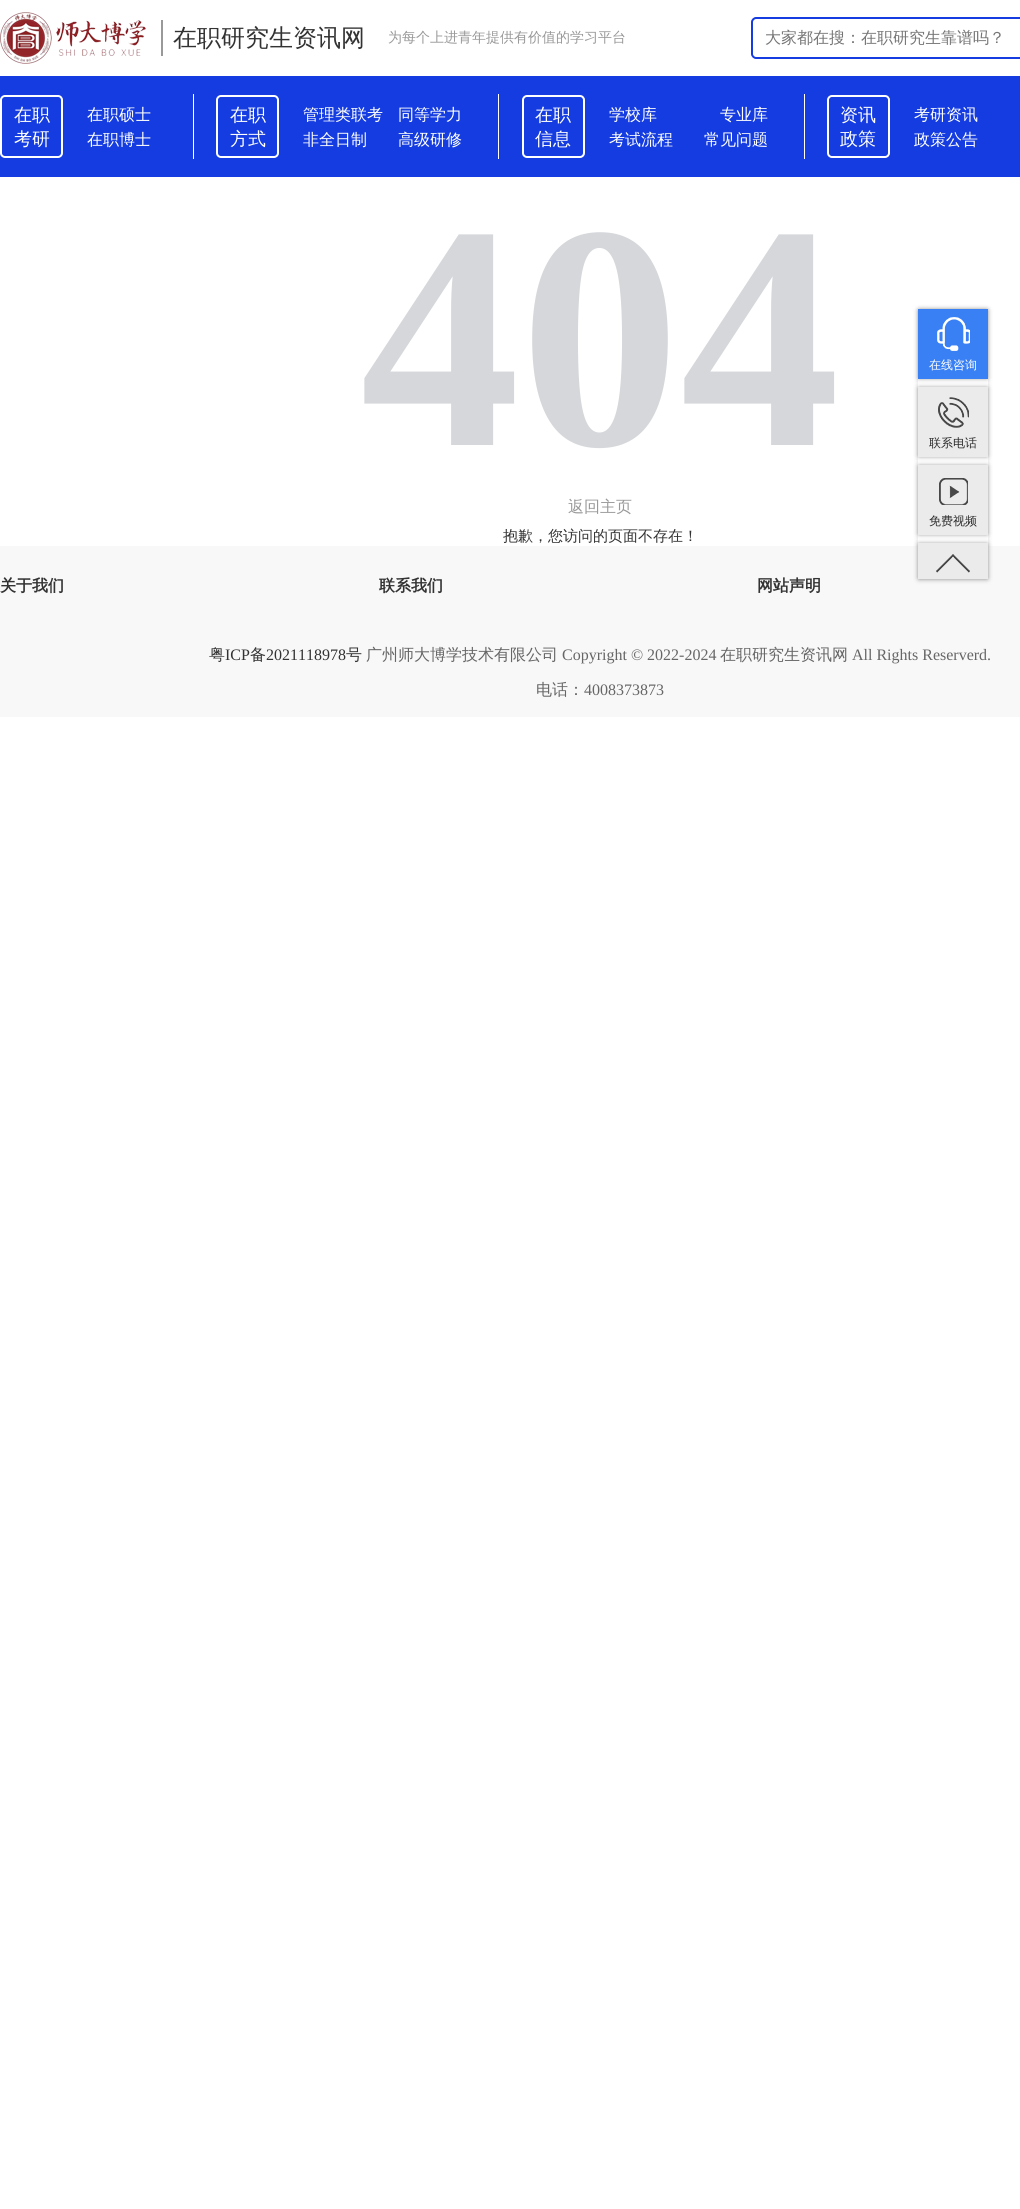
#include <cairo/cairo.h>
#include <math.h>
#include <stddef.h>

typedef struct { double x, y; const char *s; } line_t;
static cairo_t *cr;

static void rgb(unsigned color)
{
	cairo_set_source_rgb(cr, (color >> 16) / 255.0, (color >> 8 & 255) / 255.0, (color & 255) / 255.0);
}

static void rrect(double x, double y, double w, double h, double r)
{
	cairo_new_sub_path(cr);
	cairo_arc(cr, x + w - r, y + h - r, r, 0, M_PI / 2);
	cairo_arc(cr, x + r, y + h - r, r, M_PI / 2, M_PI);
	cairo_arc(cr, x + r, y + r, r, M_PI, 1.5 * M_PI);
	cairo_arc(cr, x + w - r, y + r, r, 1.5 * M_PI, 2 * M_PI);
	cairo_close_path(cr);
}

static void soft_shadow(double x, double y, double w, double h, double r, double blur, double alpha)
{
	cairo_push_group_with_content(cr, CAIRO_CONTENT_ALPHA);
	cairo_set_operator(cr, CAIRO_OPERATOR_SOURCE);
	for (int i = 15; i >= -15 && fmin(w, h) + blur * i / 3 > 0; i -= 2) {
		double e = blur * i / 6;
		cairo_set_source_rgba(cr, 0, 0, 0, alpha * erfc((i - 1) / 8.5) / 2);
		rrect(x - e, y - e, w + 2 * e, h + 2 * e, fmax(0, fmin(r + e + blur * .6, fmin(w, h) / 2 + e)));
		cairo_fill(cr);
	}
	cairo_pattern_t *soft = cairo_pop_group(cr);
	cairo_mask(cr, soft);
	cairo_pattern_destroy(soft);
}

static void image(const char *path, double x, double y, double w, double h)
{
	cairo_surface_t *image = cairo_image_surface_create_from_png(path);
	cairo_save(cr);
	cairo_set_source_surface(cr, image, x, y);
	cairo_rectangle(cr, x, y, w, h);
	cairo_fill(cr);
	cairo_restore(cr);
	cairo_surface_destroy(image);
}

int main(void) {
	cairo_surface_t *surface = cairo_image_surface_create(CAIRO_FORMAT_RGB24, 1020, 2209);
	cr = cairo_create(surface);
	cairo_font_options_t *options = cairo_font_options_create();
	cairo_font_options_set_hint_metrics(options, CAIRO_HINT_METRICS_OFF);
	cairo_font_options_set_hint_style(options, CAIRO_HINT_STYLE_NONE);
	cairo_set_font_options(cr, options);
	cairo_set_miter_limit(cr, 4);
	rgb(0xffffff);
	cairo_paint(cr);
	image("img/1.png", 0, 12, 146, 52);
	rgb(0x999999);
	cairo_rectangle(cr, 161, 20, 2, 36);
	cairo_fill(cr);
	cairo_new_path(cr);
	cairo_move_to(cr, 756, 18);
	cairo_line_to(cr, 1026, 18);
	cairo_line_to(cr, 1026, 58);
	cairo_line_to(cr, 756, 58);
	cairo_curve_to(cr, 754, 58, 752, 56, 752, 54);
	cairo_line_to(cr, 752, 22);
	cairo_curve_to(cr, 752, 20, 754, 18, 756, 18);
	cairo_close_path(cr);
	rgb(0x143ce0);
	cairo_stroke(cr);
	cairo_rectangle(cr, 0, 76, 1020, 101);
	cairo_fill(cr);
	rrect(1, 96, 61, 61, 4);
	rgb(0xffffff);
	cairo_stroke(cr);
	cairo_rectangle(cr, 193, 94, 1, 65);
	cairo_fill(cr);
	rrect(217, 96, 61, 61, 4);
	cairo_stroke(cr);
	cairo_rectangle(cr, 498, 94, 1, 65);
	cairo_fill(cr);
	rrect(523, 96, 61, 61, 4);
	cairo_stroke(cr);
	cairo_rectangle(cr, 804, 94, 1, 65);
	cairo_fill(cr);
	rrect(828, 96, 61, 61, 4);
	cairo_stroke(cr);
	rgb(0xf8f8f8);
	cairo_rectangle(cr, 0, 546, 1020, 171);
	cairo_fill(cr);
	cairo_save(cr);
	cairo_set_fill_rule(cr, CAIRO_FILL_RULE_EVEN_ODD);
	cairo_new_path(cr);
	cairo_move_to(cr, 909, 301);
	cairo_line_to(cr, 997, 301);
	cairo_line_to(cr, 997, 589);
	cairo_line_to(cr, 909, 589);
	cairo_close_path(cr);
	cairo_move_to(cr, 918, 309);
	cairo_line_to(cr, 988, 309);
	cairo_line_to(cr, 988, 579);
	cairo_line_to(cr, 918, 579);
	cairo_close_path(cr);
	cairo_clip(cr);
	rgb(0xdddddd);
	soft_shadow(918, 310, 70, 270, 0, 2.5, 1);
	cairo_restore(cr);
	rgb(0x000000);
	soft_shadow(919, 310, 68, 68, 0, 2.5, 0.5);
	rgb(0x3880f4);
	cairo_rectangle(cr, 918, 309, 70, 70);
	cairo_fill(cr);
	image("img/2.png", 937, 317, 33, 34);
	rgb(0x000000);
	soft_shadow(919, 388, 68, 68, 0, 2.5, 0.5);
	rgb(0xebebeb);
	cairo_rectangle(cr, 918, 387, 70, 70);
	cairo_fill(cr);
	image("img/3.png", 938, 397, 31, 31);
	rgb(0x000000);
	soft_shadow(919, 466, 68, 68, 0, 2.5, 0.5);
	rgb(0xebebeb);
	cairo_rectangle(cr, 918, 465, 70, 70);
	cairo_fill(cr);
	image("img/4.png", 939, 478, 29, 27);
	rgb(0x000000);
	soft_shadow(919, 544, 68, 34, 0, 2.5, 0.5);
	rgb(0xebebeb);
	cairo_rectangle(cr, 918, 543, 70, 36);
	cairo_fill(cr);
	image("img/5.png", 936, 554, 34, 19);
	cairo_select_font_face(cr, "WenQuanYi Zen Hei Medium", CAIRO_FONT_SLANT_NORMAL, CAIRO_FONT_WEIGHT_NORMAL);
	cairo_set_font_size(cr, 24);
	rgb(0x333333);
	cairo_move_to(cr, 173, 46);
	cairo_show_text(cr, "在职研究生资讯网");
	cairo_set_font_size(cr, 14);
	rgb(0x999999);
	cairo_move_to(cr, 388, 42);
	cairo_show_text(cr, "为每个上进青年提供有价值的学习平台");
	cairo_set_font_size(cr, 16);
	rgb(0x757575);
	cairo_move_to(cr, 765, 43);
	cairo_show_text(cr, "大家都在搜：在职研究生靠谱吗？");
	cairo_set_font_size(cr, 18);
	rgb(0xffffff);
	cairo_move_to(cr, 14, 121);
	cairo_show_text(cr, "在职");
	cairo_move_to(cr, 14, 145);
	cairo_show_text(cr, "考研");
	cairo_set_font_size(cr, 16);
	cairo_move_to(cr, 87, 120);
	cairo_show_text(cr, "在职硕士");
	cairo_move_to(cr, 87, 145);
	cairo_show_text(cr, "在职博士");
	cairo_set_font_size(cr, 18);
	cairo_move_to(cr, 230, 121);
	cairo_show_text(cr, "在职");
	cairo_move_to(cr, 230, 145);
	cairo_show_text(cr, "方式");
	cairo_set_font_size(cr, 16);
	{
		static const line_t items[] = {
			{303, 120, "管理类联考"},
			{398, 120, "同等学力"},
			{303, 145, "非全日制"},
			{398, 145, "高级研修"},
		};
		for (size_t i = 0; i < sizeof items / sizeof *items; i++) {
			cairo_move_to(cr, items[i].x, items[i].y);
			cairo_show_text(cr, items[i].s);
		}
	}
	cairo_set_font_size(cr, 18);
	cairo_move_to(cr, 535, 121);
	cairo_show_text(cr, "在职");
	cairo_move_to(cr, 535, 145);
	cairo_show_text(cr, "信息");
	cairo_set_font_size(cr, 16);
	{
		static const line_t items[] = {
			{609, 120, "学校库"},
			{720, 120, "专业库"},
			{609, 145, "考试流程"},
			{704, 145, "常见问题"},
		};
		for (size_t i = 0; i < sizeof items / sizeof *items; i++) {
			cairo_move_to(cr, items[i].x, items[i].y);
			cairo_show_text(cr, items[i].s);
		}
	}
	cairo_set_font_size(cr, 18);
	cairo_move_to(cr, 840, 121);
	cairo_show_text(cr, "资讯");
	cairo_move_to(cr, 840, 145);
	cairo_show_text(cr, "政策");
	cairo_set_font_size(cr, 16);
	cairo_move_to(cr, 914, 120);
	cairo_show_text(cr, "考研资讯");
	cairo_move_to(cr, 914, 145);
	cairo_show_text(cr, "政策公告");
	cairo_select_font_face(cr, "Liberation Serif", CAIRO_FONT_SLANT_NORMAL, CAIRO_FONT_WEIGHT_BOLD);
	cairo_set_font_size(cr, 320);
	rgb(0xd5d7da);
	cairo_move_to(cr, 360, 445);
	cairo_show_text(cr, "404");
	cairo_select_font_face(cr, "WenQuanYi Zen Hei Medium", CAIRO_FONT_SLANT_NORMAL, CAIRO_FONT_WEIGHT_NORMAL);
	cairo_set_font_size(cr, 16);
	rgb(0x999999);
	cairo_move_to(cr, 568, 512);
	cairo_show_text(cr, "返回主页");
	cairo_set_font_size(cr, 15);
	rgb(0x333333);
	cairo_move_to(cr, 503, 541);
	cairo_show_text(cr, "抱歉，您访问的页面不存在！");
	cairo_set_font_size(cr, 12);
	rgb(0xffffff);
	cairo_move_to(cr, 929, 369);
	cairo_show_text(cr, "在线咨询");
	rgb(0x2c2b2b);
	cairo_move_to(cr, 929, 447);
	cairo_show_text(cr, "联系电话");
	cairo_move_to(cr, 929, 525);
	cairo_show_text(cr, "免费视频");
	cairo_select_font_face(cr, "WenQuanYi Zen Hei", CAIRO_FONT_SLANT_NORMAL, CAIRO_FONT_WEIGHT_BOLD);
	cairo_set_font_size(cr, 16);
	rgb(0x333333);
	{
		static const line_t items[] = {
			{0, 591, "关于我们"},
			{379, 591, "联系我们"},
			{757, 591, "网站声明"},
		};
		for (size_t i = 0; i < sizeof items / sizeof *items; i++) {
			cairo_move_to(cr, items[i].x, items[i].y);
			cairo_show_text(cr, items[i].s);
		}
	}
	cairo_select_font_face(cr, "WenQuanYi Zen Hei Medium", CAIRO_FONT_SLANT_NORMAL, CAIRO_FONT_WEIGHT_NORMAL);
	cairo_move_to(cr, 209, 660);
	cairo_show_text(cr, "粤");
	cairo_select_font_face(cr, "Liberation Serif", CAIRO_FONT_SLANT_NORMAL, CAIRO_FONT_WEIGHT_NORMAL);
	cairo_move_to(cr, 225, 660);
	cairo_show_text(cr, "ICP");
	cairo_select_font_face(cr, "WenQuanYi Zen Hei Medium", CAIRO_FONT_SLANT_NORMAL, CAIRO_FONT_WEIGHT_NORMAL);
	cairo_move_to(cr, 250, 660);
	cairo_show_text(cr, "备");
	cairo_select_font_face(cr, "Liberation Serif", CAIRO_FONT_SLANT_NORMAL, CAIRO_FONT_WEIGHT_NORMAL);
	cairo_move_to(cr, 266, 660);
	cairo_show_text(cr, "2021118978");
	cairo_select_font_face(cr, "WenQuanYi Zen Hei Medium", CAIRO_FONT_SLANT_NORMAL, CAIRO_FONT_WEIGHT_NORMAL);
	cairo_move_to(cr, 346, 660);
	cairo_show_text(cr, "号");
	rgb(0x666666);
	cairo_move_to(cr, 366, 660);
	cairo_show_text(cr, "广州师大博学技术有限公司");
	cairo_select_font_face(cr, "Liberation Serif", CAIRO_FONT_SLANT_NORMAL, CAIRO_FONT_WEIGHT_NORMAL);
	cairo_move_to(cr, 562, 660);
	cairo_show_text(cr, "Copyright © 2022-2024");
	cairo_select_font_face(cr, "WenQuanYi Zen Hei Medium", CAIRO_FONT_SLANT_NORMAL, CAIRO_FONT_WEIGHT_NORMAL);
	cairo_move_to(cr, 720, 660);
	cairo_show_text(cr, "在职研究生资讯网");
	cairo_select_font_face(cr, "Liberation Serif", CAIRO_FONT_SLANT_NORMAL, CAIRO_FONT_WEIGHT_NORMAL);
	cairo_move_to(cr, 852, 660);
	cairo_show_text(cr, "All Rights Reserverd.");
	cairo_select_font_face(cr, "WenQuanYi Zen Hei Medium", CAIRO_FONT_SLANT_NORMAL, CAIRO_FONT_WEIGHT_NORMAL);
	cairo_move_to(cr, 536, 695);
	cairo_show_text(cr, "电话：");
	cairo_select_font_face(cr, "Liberation Serif", CAIRO_FONT_SLANT_NORMAL, CAIRO_FONT_WEIGHT_NORMAL);
	cairo_move_to(cr, 584, 695);
	cairo_show_text(cr, "4008373873");
	cairo_surface_write_to_png(surface, "page.png");
	cairo_font_options_destroy(options);
	cairo_destroy(cr);
	cairo_surface_destroy(surface);
	return 0;
}
